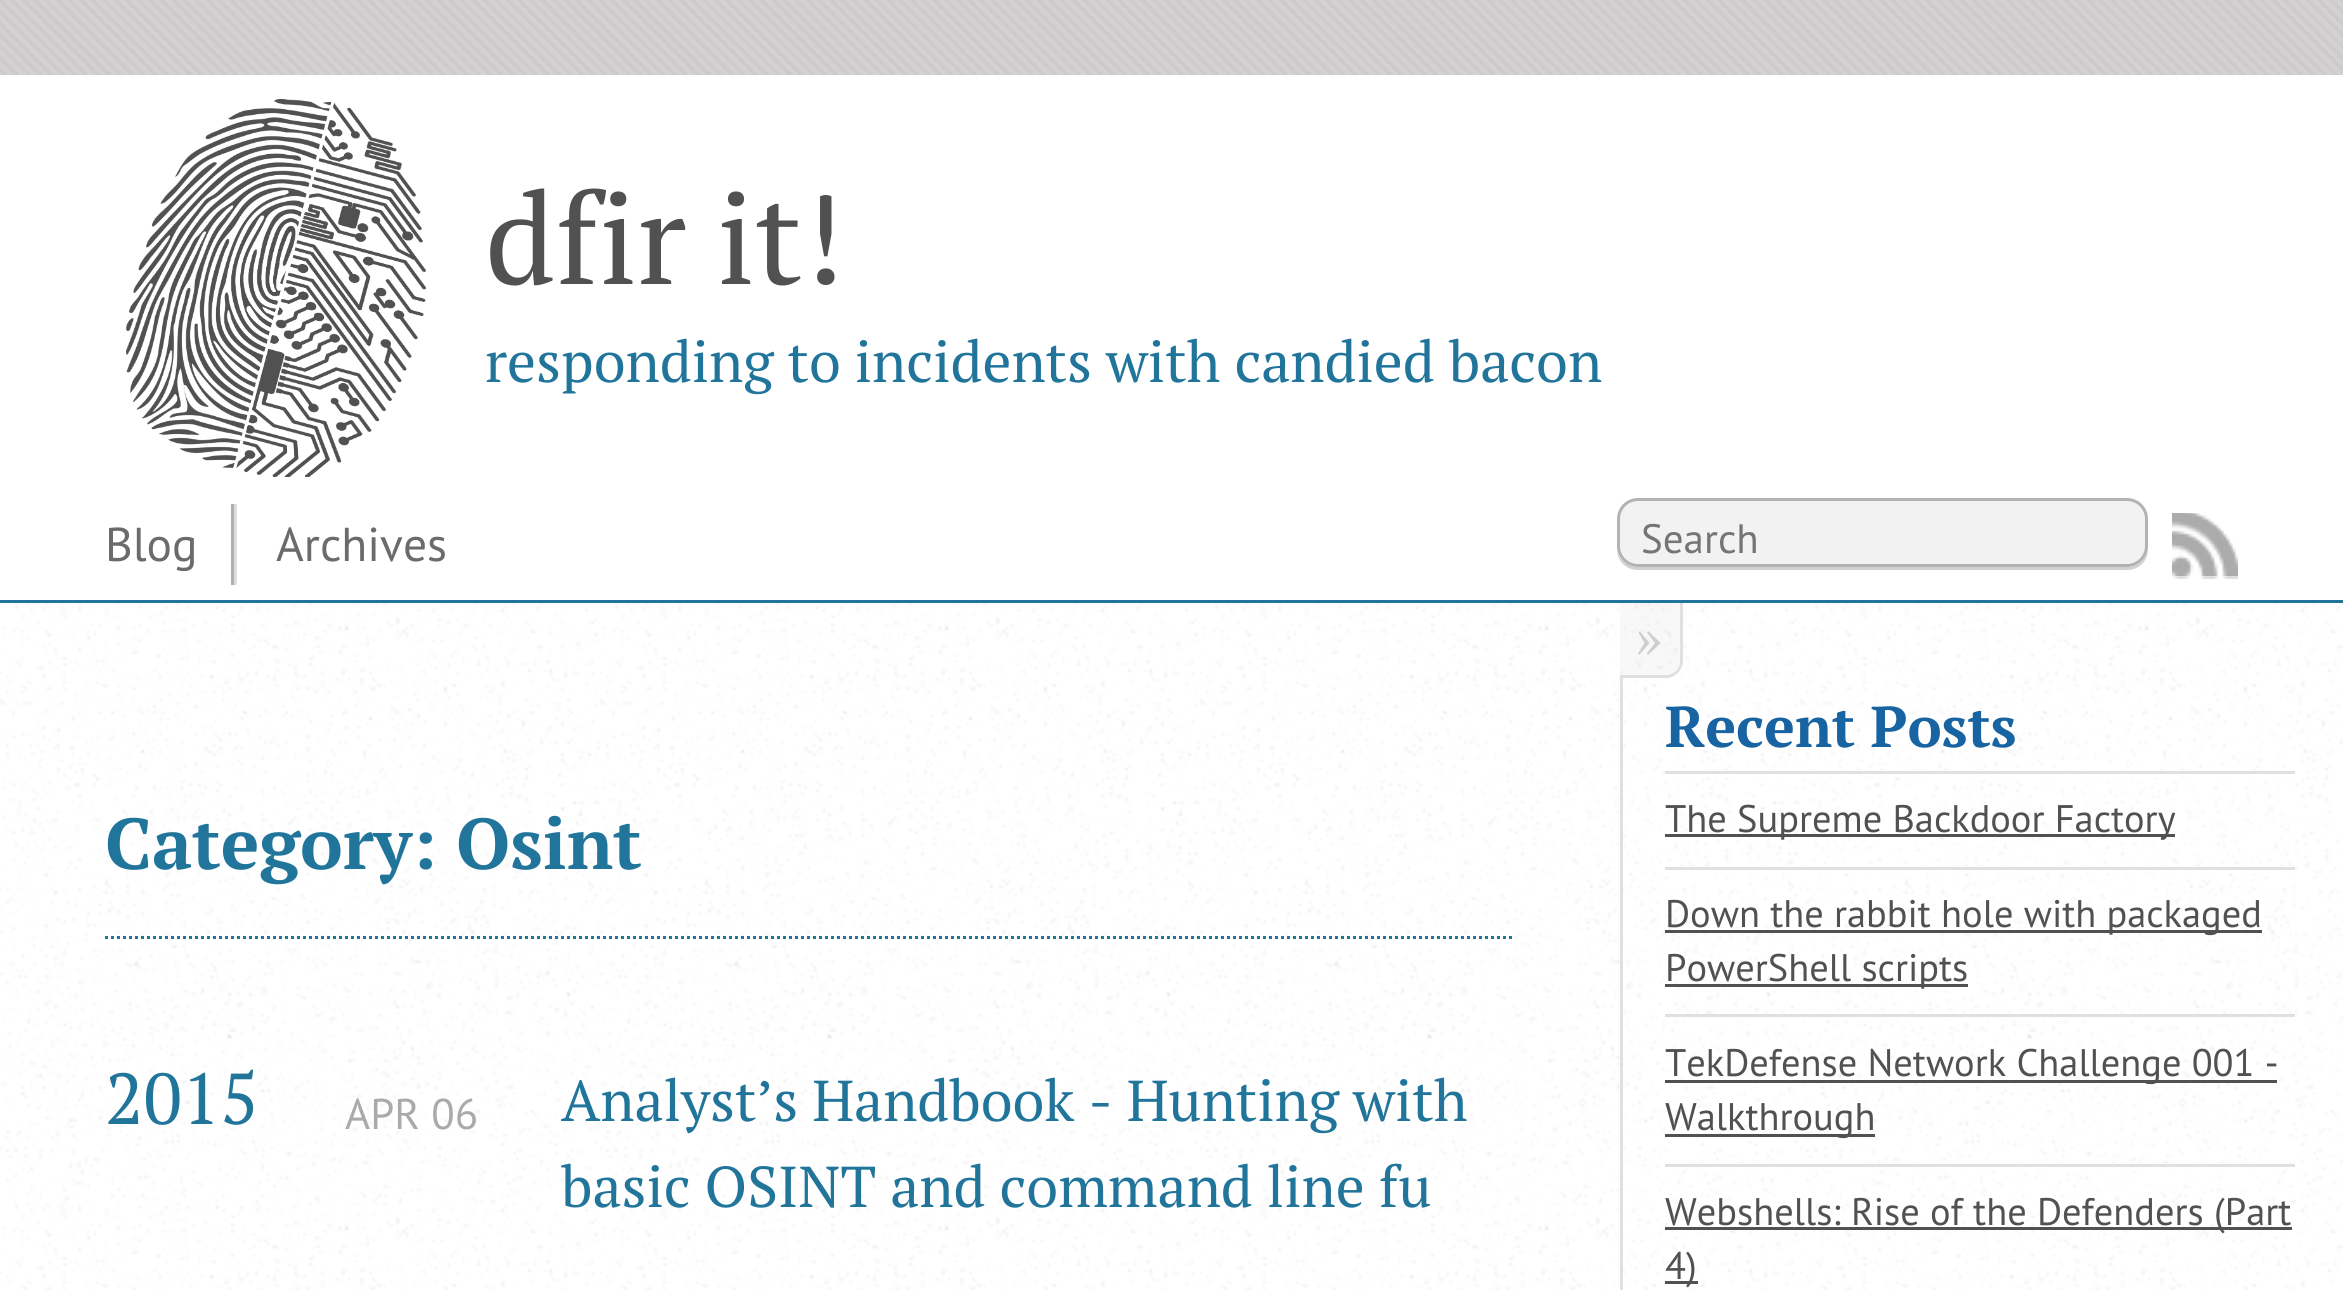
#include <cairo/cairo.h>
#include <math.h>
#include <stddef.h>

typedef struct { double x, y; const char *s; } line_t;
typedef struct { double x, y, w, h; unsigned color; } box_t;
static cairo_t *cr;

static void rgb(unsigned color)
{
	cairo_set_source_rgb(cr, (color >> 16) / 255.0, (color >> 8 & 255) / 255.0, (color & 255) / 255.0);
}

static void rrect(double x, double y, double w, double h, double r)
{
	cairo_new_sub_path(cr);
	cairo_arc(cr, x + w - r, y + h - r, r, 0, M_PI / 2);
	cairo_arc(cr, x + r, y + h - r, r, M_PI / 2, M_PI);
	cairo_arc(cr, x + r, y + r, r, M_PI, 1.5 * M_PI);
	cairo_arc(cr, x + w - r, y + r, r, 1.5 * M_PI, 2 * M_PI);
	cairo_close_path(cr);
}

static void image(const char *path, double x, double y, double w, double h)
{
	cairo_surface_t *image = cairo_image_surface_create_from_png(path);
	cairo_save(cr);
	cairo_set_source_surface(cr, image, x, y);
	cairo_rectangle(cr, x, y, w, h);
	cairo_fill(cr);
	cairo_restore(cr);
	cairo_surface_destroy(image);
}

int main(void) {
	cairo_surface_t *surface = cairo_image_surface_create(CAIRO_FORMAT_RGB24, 2343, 1290);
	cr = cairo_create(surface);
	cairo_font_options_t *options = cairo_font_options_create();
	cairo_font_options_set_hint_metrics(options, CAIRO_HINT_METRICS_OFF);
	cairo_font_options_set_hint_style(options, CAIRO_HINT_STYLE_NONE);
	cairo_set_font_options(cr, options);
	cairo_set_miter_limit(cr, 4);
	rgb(0xd4d2d2);
	cairo_paint(cr);
	image("img/1.png", 0, 0, 2343, 75);
	rgb(0xffffff);
	cairo_rectangle(cr, 0, 75, 2343, 525);
	cairo_fill(cr);
	image("img/2.png", 126, 99, 300, 378);
	{
		static const box_t items[] = {
			{0, 600, 2343, 3, 0x21759b},
			{231, 504, 3, 81, 0xb0b0b0},
			{234, 504, 3, 81, 0xdedede},
		};
		for (size_t i = 0; i < sizeof items / sizeof *items; i++) {
			rgb(items[i].color);
			cairo_rectangle(cr, items[i].x, items[i].y, items[i].w, items[i].h);
			cairo_fill(cr);
		}
	}
	rgb(0xd1d1d1);
	cairo_new_path(cr);
	cairo_move_to(cr, 1617, 546);
	cairo_line_to(cr, 1617, 549);
	cairo_curve_to(cr, 1617, 561, 1626, 570, 1638, 570);
	cairo_line_to(cr, 2127, 570);
	cairo_curve_to(cr, 2139, 570, 2148, 561, 2148, 549);
	cairo_line_to(cr, 2148, 546);
	cairo_curve_to(cr, 2148, 558, 2139, 567, 2127, 567);
	cairo_line_to(cr, 1638, 567);
	cairo_curve_to(cr, 1626, 567, 1617, 558, 1617, 546);
	cairo_close_path(cr);
	cairo_fill(cr);
	rgb(0xf2f2f2);
	rrect(1618.5, 499.5, 528, 66, 19.5);
	cairo_fill_preserve(cr);
	rgb(0xb3b3b3);
	cairo_set_line_width(cr, 3);
	cairo_stroke(cr);
	image("img/3.png", 2172, 513, 66, 66);
	image("img/4.png", 2172, 513, 66, 63);
	rgb(0xffffff);
	cairo_rectangle(cr, 1623, 603, 720, 687);
	cairo_fill(cr);
	image("img/5.png", 1623, 603, 720, 687);
	cairo_rectangle(cr, 0, 603, 1620, 687);
	cairo_fill(cr);
	image("img/6.png", 0, 603, 1620, 687);
	rgb(0xe0e0e0);
	cairo_rectangle(cr, 1620, 678, 3, 612);
	cairo_fill(cr);
	rgb(0xf8f8f8);
	cairo_new_path(cr);
	cairo_move_to(cr, 1620, 603);
	cairo_line_to(cr, 1683, 603);
	cairo_line_to(cr, 1683, 660);
	cairo_curve_to(cr, 1683, 670, 1675, 678, 1665, 678);
	cairo_line_to(cr, 1620, 678);
	cairo_close_path(cr);
	cairo_fill(cr);
	image("img/7.png", 1620, 603, 59, 72);
	rgb(0xe0e0e0);
	cairo_set_fill_rule(cr, CAIRO_FILL_RULE_EVEN_ODD);
	cairo_new_path(cr);
	cairo_move_to(cr, 1620, 603);
	cairo_line_to(cr, 1683, 603);
	cairo_line_to(cr, 1683, 661);
	cairo_curve_to(cr, 1683, 670, 1675, 678, 1666, 678);
	cairo_line_to(cr, 1620, 678);
	cairo_close_path(cr);
	cairo_move_to(cr, 1620, 603);
	cairo_line_to(cr, 1680, 603);
	cairo_line_to(cr, 1680, 661);
	cairo_curve_to(cr, 1680, 669, 1674, 675, 1666, 675);
	cairo_line_to(cr, 1620, 675);
	cairo_close_path(cr);
	cairo_fill(cr);
	cairo_new_path(cr);
	cairo_move_to(cr, 105, 937.5);
	cairo_line_to(cr, 1515, 937.5);
	rgb(0x21759b);
	cairo_set_dash(cr, (double[]){3, 3}, 2, 0);
	cairo_stroke(cr);
	{
		static const box_t items[] = {
			{1665, 774, 610, 3, 0xffffff},
			{1665, 771, 630, 3, 0xe0e0e0},
			{1665, 870, 630, 3, 0xffffff},
			{1665, 867, 630, 3, 0xe0e0e0},
			{1665, 834, 510, 3, 0x515151},
			{1665, 1017, 618, 3, 0xffffff},
			{1665, 1014, 630, 3, 0xe0e0e0},
			{1665, 930, 597, 3, 0x515151},
			{1665, 984, 303, 3, 0x515151},
			{1665, 1167, 620, 3, 0xffffff},
			{1665, 1164, 630, 3, 0xe0e0e0},
			{1665, 1080, 612, 3, 0x515151},
			{1665, 1134, 210, 3, 0x515151},
			{1665, 1227, 627, 3, 0x515151},
			{1665, 1281, 33, 3, 0x515151},
		};
		for (size_t i = 0; i < sizeof items / sizeof *items; i++) {
			rgb(items[i].color);
			cairo_rectangle(cr, items[i].x, items[i].y, items[i].w, items[i].h);
			cairo_fill(cr);
		}
	}
	cairo_select_font_face(cr, "PT Serif", CAIRO_FONT_SLANT_NORMAL, CAIRO_FONT_WEIGHT_NORMAL);
	cairo_set_font_size(cr, 127);
	cairo_move_to(cr, 485, 284);
	cairo_show_text(cr, "dfir it!");
	cairo_set_font_size(cr, 57.6);
	rgb(0x21759b);
	cairo_move_to(cr, 485, 382);
	cairo_show_text(cr, "responding to incidents with candied bacon");
	cairo_select_font_face(cr, "PT Sans", CAIRO_FONT_SLANT_NORMAL, CAIRO_FONT_WEIGHT_NORMAL);
	cairo_set_font_size(cr, 47.5);
	rgb(0x6b6b6b);
	cairo_move_to(cr, 105, 561);
	cairo_show_text(cr, "Blog");
	cairo_move_to(cr, 276, 561);
	cairo_show_text(cr, "Archives");
	cairo_set_font_size(cr, 41);
	rgb(0x757575);
	cairo_move_to(cr, 1641, 553);
	cairo_show_text(cr, "Search");
	cairo_select_font_face(cr, "PT Serif", CAIRO_FONT_SLANT_NORMAL, CAIRO_FONT_WEIGHT_NORMAL);
	cairo_set_font_size(cr, 57.6);
	rgb(0xcecece);
	cairo_move_to(cr, 1635, 658);
	cairo_show_text(cr, "»");
	cairo_select_font_face(cr, "PT Serif", CAIRO_FONT_SLANT_NORMAL, CAIRO_FONT_WEIGHT_BOLD);
	cairo_set_font_size(cr, 72);
	rgb(0x21759b);
	cairo_move_to(cr, 105, 869);
	cairo_show_text(cr, "Category: Osint");
	cairo_select_font_face(cr, "PT Serif", CAIRO_FONT_SLANT_NORMAL, CAIRO_FONT_WEIGHT_NORMAL);
	cairo_move_to(cr, 105, 1124);
	cairo_show_text(cr, "2015");
	cairo_select_font_face(cr, "PT Sans", CAIRO_FONT_SLANT_NORMAL, CAIRO_FONT_WEIGHT_NORMAL);
	cairo_set_font_size(cr, 43);
	rgb(0xaaaaaa);
	cairo_move_to(cr, 345, 1129);
	cairo_show_text(cr, "APR 06");
	cairo_select_font_face(cr, "PT Serif", CAIRO_FONT_SLANT_NORMAL, CAIRO_FONT_WEIGHT_NORMAL);
	cairo_set_font_size(cr, 57.6);
	rgb(0x21759b);
	cairo_move_to(cr, 561, 1121);
	cairo_show_text(cr, "Analyst’s Handbook - Hunting with");
	cairo_move_to(cr, 561, 1207);
	cairo_show_text(cr, "basic OSINT and command line fu");
	cairo_select_font_face(cr, "PT Serif", CAIRO_FONT_SLANT_NORMAL, CAIRO_FONT_WEIGHT_BOLD);
	rgb(0x1863a1);
	cairo_move_to(cr, 1665, 747);
	cairo_show_text(cr, "Recent Posts");
	cairo_select_font_face(cr, "PT Sans", CAIRO_FONT_SLANT_NORMAL, CAIRO_FONT_WEIGHT_NORMAL);
	cairo_set_font_size(cr, 38.4);
	rgb(0x515151);
	{
		static const line_t items[] = {
			{1665, 832, "The Supreme Backdoor Factory"},
			{1665, 927, "Down the rabbit hole with packaged"},
			{1665, 981, "PowerShell scripts"},
			{1665, 1076, "TekDefense Network Challenge 001 -"},
			{1665, 1130, "Walkthrough"},
			{1665, 1225, "Webshells: Rise of the Defenders (Part"},
			{1665, 1279, "4)"},
		};
		for (size_t i = 0; i < sizeof items / sizeof *items; i++) {
			cairo_move_to(cr, items[i].x, items[i].y);
			cairo_show_text(cr, items[i].s);
		}
	}
	cairo_surface_write_to_png(surface, "page.png");
	cairo_font_options_destroy(options);
	cairo_destroy(cr);
	cairo_surface_destroy(surface);
	return 0;
}
